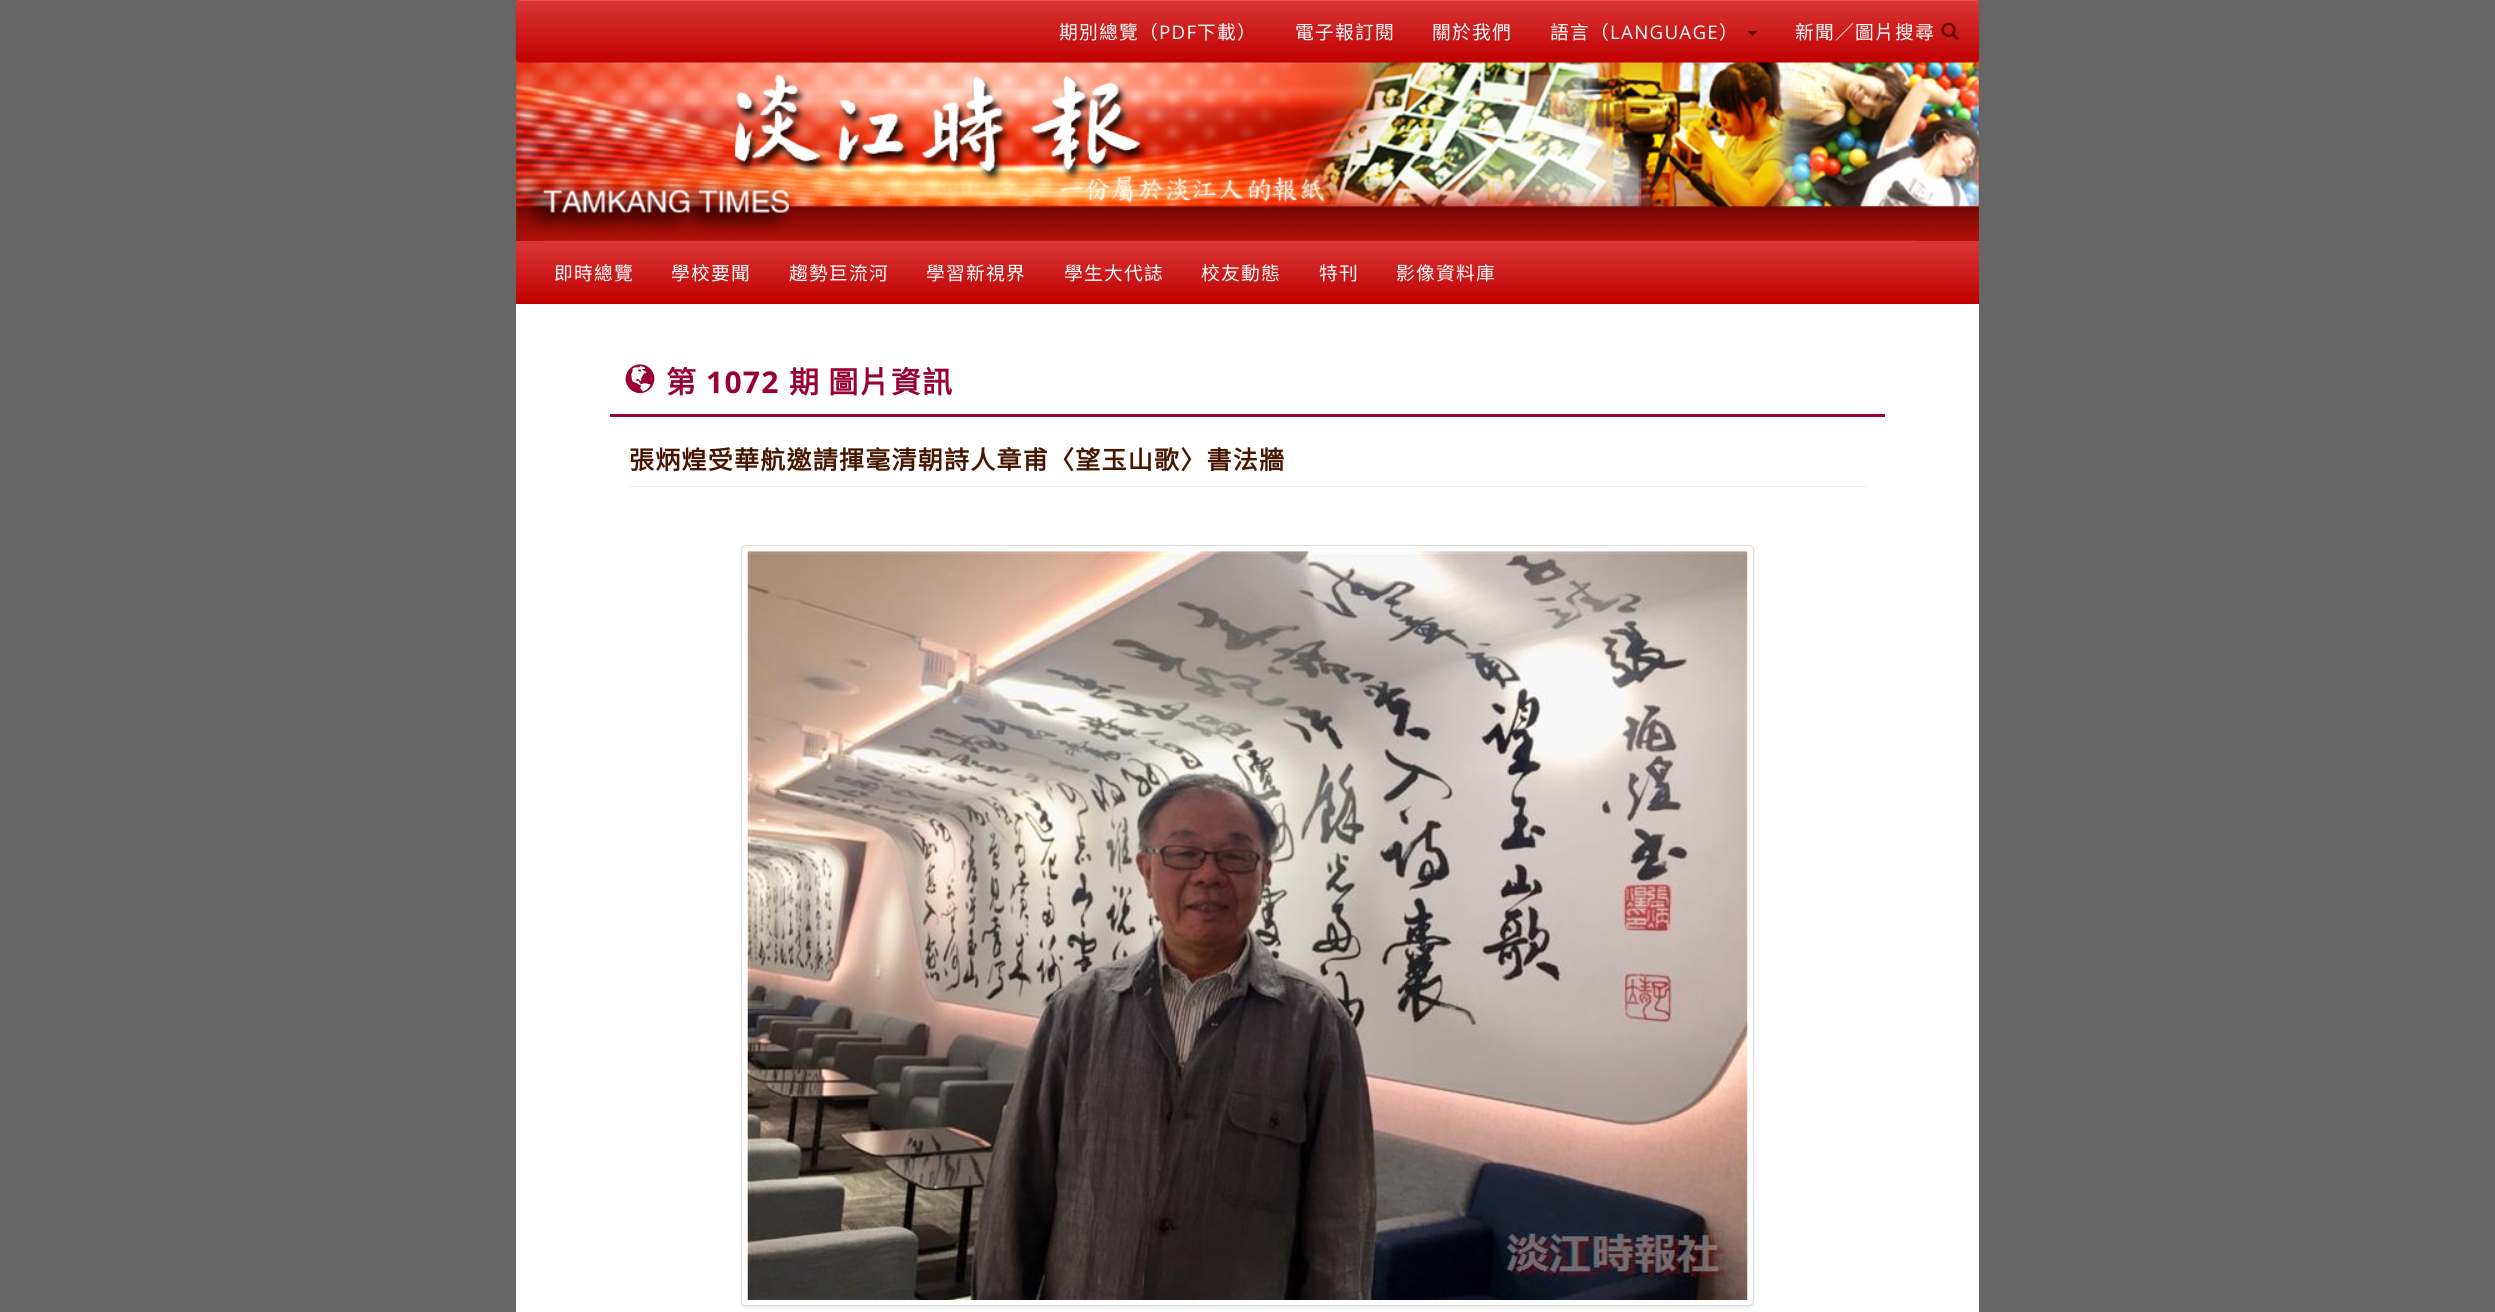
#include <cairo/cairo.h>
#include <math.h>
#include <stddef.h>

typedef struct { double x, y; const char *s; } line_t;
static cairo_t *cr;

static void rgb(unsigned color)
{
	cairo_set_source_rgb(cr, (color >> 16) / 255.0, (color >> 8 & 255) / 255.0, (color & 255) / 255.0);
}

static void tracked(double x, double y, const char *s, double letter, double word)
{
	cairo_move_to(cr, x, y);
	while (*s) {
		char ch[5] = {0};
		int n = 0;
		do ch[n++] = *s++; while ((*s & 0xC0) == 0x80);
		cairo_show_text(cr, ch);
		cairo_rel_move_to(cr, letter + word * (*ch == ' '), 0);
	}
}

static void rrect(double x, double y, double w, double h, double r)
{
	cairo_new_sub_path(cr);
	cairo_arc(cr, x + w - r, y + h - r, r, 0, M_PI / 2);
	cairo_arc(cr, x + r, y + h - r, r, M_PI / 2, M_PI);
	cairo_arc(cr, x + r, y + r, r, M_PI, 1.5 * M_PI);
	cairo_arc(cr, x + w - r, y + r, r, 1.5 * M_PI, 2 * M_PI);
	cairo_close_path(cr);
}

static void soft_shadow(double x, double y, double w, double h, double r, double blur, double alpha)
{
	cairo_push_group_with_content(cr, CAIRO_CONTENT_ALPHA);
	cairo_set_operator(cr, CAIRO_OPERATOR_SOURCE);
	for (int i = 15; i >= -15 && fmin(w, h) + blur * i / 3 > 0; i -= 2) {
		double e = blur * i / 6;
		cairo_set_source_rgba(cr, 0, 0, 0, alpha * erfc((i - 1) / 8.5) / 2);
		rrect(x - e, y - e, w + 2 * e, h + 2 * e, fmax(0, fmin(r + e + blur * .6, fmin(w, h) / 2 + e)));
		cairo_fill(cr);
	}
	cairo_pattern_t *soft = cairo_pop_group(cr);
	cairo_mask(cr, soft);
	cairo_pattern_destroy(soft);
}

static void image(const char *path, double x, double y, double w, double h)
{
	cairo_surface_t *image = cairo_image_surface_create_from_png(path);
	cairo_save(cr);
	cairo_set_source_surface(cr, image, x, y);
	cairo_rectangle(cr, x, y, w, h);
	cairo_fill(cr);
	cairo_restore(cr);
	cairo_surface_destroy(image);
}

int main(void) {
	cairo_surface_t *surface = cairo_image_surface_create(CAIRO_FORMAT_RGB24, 2495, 1312);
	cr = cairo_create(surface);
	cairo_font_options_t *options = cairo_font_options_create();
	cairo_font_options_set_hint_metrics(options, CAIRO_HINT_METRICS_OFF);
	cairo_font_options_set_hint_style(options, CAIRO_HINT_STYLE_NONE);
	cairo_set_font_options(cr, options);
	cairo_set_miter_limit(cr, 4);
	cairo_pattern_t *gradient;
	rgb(0x666666);
	cairo_paint(cr);
	gradient = cairo_pattern_create_linear(1248, 0, 1248, 304);
	cairo_pattern_add_color_stop_rgba(gradient, 0, 0.859, 0.216, 0.216, 1);
	cairo_pattern_add_color_stop_rgba(gradient, 1, 0.749, 0, 0, 1);
	cairo_set_source(cr, gradient);
	cairo_pattern_destroy(gradient);
	cairo_rectangle(cr, 516, 0, 1463, 241);
	cairo_fill(cr);
	rgb(0x000000);
	soft_shadow(516, 1, 1463, 63, 5, 3, 0.07);
	gradient = cairo_pattern_create_linear(1248, 0, 1248, 63);
	cairo_pattern_add_color_stop_rgba(gradient, 0, 0.859, 0.216, 0.216, 1);
	cairo_pattern_add_color_stop_rgba(gradient, 1, 0.749, 0, 0, 1);
	cairo_set_source(cr, gradient);
	cairo_pattern_destroy(gradient);
	rrect(516, 0, 1463, 63, 5);
	cairo_fill(cr);
	rgb(0xe05555);
	cairo_new_path(cr);
	cairo_move_to(cr, 521, 1);
	cairo_line_to(cr, 1974, 1);
	cairo_curve_to(cr, 1977, 1, 1979, 3, 1979, 6);
	cairo_line_to(cr, 1979, 5);
	cairo_curve_to(cr, 1979, 2, 1977, 0, 1974, 0);
	cairo_line_to(cr, 521, 0);
	cairo_curve_to(cr, 518, 0, 516, 2, 516, 5);
	cairo_line_to(cr, 516, 6);
	cairo_curve_to(cr, 516, 3, 518, 1, 521, 1);
	cairo_close_path(cr);
	cairo_fill(cr);
	rgb(0x670400);
	cairo_new_path(cr);
	cairo_move_to(cr, 1747.5, 31);
	cairo_line_to(cr, 1757.5, 31);
	cairo_line_to(cr, 1752.5, 36);
	cairo_close_path(cr);
	cairo_fill(cr);
	image("img/1.png", 1941, 22, 18, 18);
	image("img/2.png", 516, 62, 1463, 179);
	gradient = cairo_pattern_create_linear(1248, 241, 1248, 304);
	cairo_pattern_add_color_stop_rgba(gradient, 0, 0.859, 0.216, 0.216, 1);
	cairo_pattern_add_color_stop_rgba(gradient, 1, 0.749, 0, 0, 1);
	cairo_set_source(cr, gradient);
	cairo_pattern_destroy(gradient);
	cairo_rectangle(cr, 516, 241, 1463, 63);
	cairo_fill(cr);
	rgb(0xffffff);
	cairo_rectangle(cr, 516, 304, 1463, 1008);
	cairo_fill(cr);
	rgb(0x990134);
	cairo_rectangle(cr, 610, 414, 1275, 3);
	cairo_fill(cr);
	image("img/3.png", 625, 364, 30, 30);
	rgb(0xeeeeee);
	cairo_rectangle(cr, 629, 486, 1237, 1);
	cairo_fill(cr);
	rgb(0x000000);
	soft_shadow(741, 546, 1013, 762, 5, 1, 0.07);
	rgb(0xffffff);
	rrect(741.5, 545.5, 1012, 760, 4.5);
	cairo_fill_preserve(cr);
	rgb(0xdddddd);
	cairo_set_line_width(cr, 1);
	cairo_stroke(cr);
	image("img/4.png", 747, 551, 1001, 749);
	cairo_select_font_face(cr, "Noto Sans CJK TC", CAIRO_FONT_SLANT_NORMAL, CAIRO_FONT_WEIGHT_NORMAL);
	cairo_set_font_size(cr, 18.75);
	rgb(0xffffff);
	tracked(1059, 39, "期別總覽（", 1.25, 0);
	cairo_select_font_face(cr, "Open Sans", CAIRO_FONT_SLANT_NORMAL, CAIRO_FONT_WEIGHT_NORMAL);
	tracked(1159, 39, "PDF", 1.25, 0);
	cairo_select_font_face(cr, "Noto Sans CJK TC", CAIRO_FONT_SLANT_NORMAL, CAIRO_FONT_WEIGHT_NORMAL);
	{
		static const line_t items[] = {
			{1197, 39, "下載）"},
			{1295, 39, "電子報訂閱"},
			{1432, 39, "關於我們"},
			{1550, 39, "語言（"},
		};
		for (size_t i = 0; i < sizeof items / sizeof *items; i++) {
			tracked(items[i].x, items[i].y, items[i].s, 1.25, 0);
		}
	}
	cairo_select_font_face(cr, "Open Sans", CAIRO_FONT_SLANT_NORMAL, CAIRO_FONT_WEIGHT_NORMAL);
	tracked(1610, 39, "LANGUAGE", 1.25, 0);
	cairo_select_font_face(cr, "Noto Sans CJK TC", CAIRO_FONT_SLANT_NORMAL, CAIRO_FONT_WEIGHT_NORMAL);
	{
		static const line_t items[] = {
			{1719, 39, "）"},
			{1795, 39, "新聞／圖片搜尋"},
			{554, 280, "即時總覽"},
			{671, 280, "學校要聞"},
			{789, 280, "趨勢巨流河"},
			{926, 280, "學習新視界"},
			{1064, 280, "學生大代誌"},
			{1201, 280, "校友動態"},
			{1319, 280, "特刊"},
			{1396, 280, "影像資料庫"},
		};
		for (size_t i = 0; i < sizeof items / sizeof *items; i++) {
			tracked(items[i].x, items[i].y, items[i].s, 1.25, 0);
		}
	}
	cairo_select_font_face(cr, "Noto Sans CJK TC", CAIRO_FONT_SLANT_NORMAL, CAIRO_FONT_WEIGHT_BOLD);
	cairo_set_font_size(cr, 30);
	rgb(0x990134);
	tracked(666, 393, "第", 1.25, 0);
	cairo_select_font_face(cr, "Open Sans", CAIRO_FONT_SLANT_NORMAL, CAIRO_FONT_WEIGHT_BOLD);
	tracked(706, 393, "1072", 1.25, 0);
	cairo_select_font_face(cr, "Noto Sans CJK TC", CAIRO_FONT_SLANT_NORMAL, CAIRO_FONT_WEIGHT_BOLD);
	tracked(789, 393, "期 圖片資訊", 1.25, 0);
	cairo_set_font_size(cr, 25);
	rgb(0x471600);
	tracked(629, 469, "張炳煌受華航邀請揮毫清朝詩人章甫〈望玉山歌〉書法牆", 1.25, 0);
	cairo_surface_write_to_png(surface, "page.png");
	cairo_font_options_destroy(options);
	cairo_destroy(cr);
	cairo_surface_destroy(surface);
	return 0;
}
